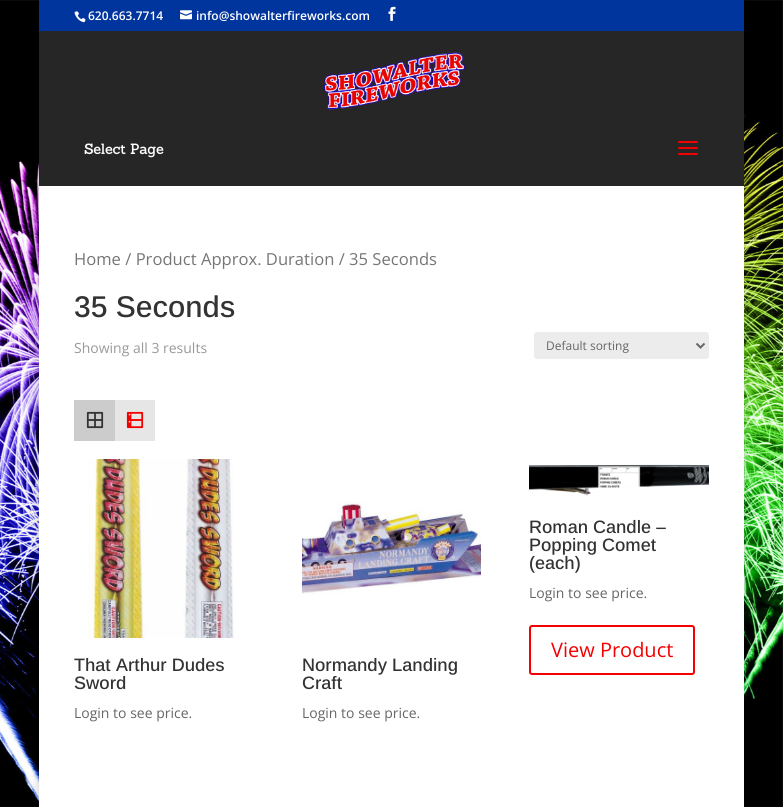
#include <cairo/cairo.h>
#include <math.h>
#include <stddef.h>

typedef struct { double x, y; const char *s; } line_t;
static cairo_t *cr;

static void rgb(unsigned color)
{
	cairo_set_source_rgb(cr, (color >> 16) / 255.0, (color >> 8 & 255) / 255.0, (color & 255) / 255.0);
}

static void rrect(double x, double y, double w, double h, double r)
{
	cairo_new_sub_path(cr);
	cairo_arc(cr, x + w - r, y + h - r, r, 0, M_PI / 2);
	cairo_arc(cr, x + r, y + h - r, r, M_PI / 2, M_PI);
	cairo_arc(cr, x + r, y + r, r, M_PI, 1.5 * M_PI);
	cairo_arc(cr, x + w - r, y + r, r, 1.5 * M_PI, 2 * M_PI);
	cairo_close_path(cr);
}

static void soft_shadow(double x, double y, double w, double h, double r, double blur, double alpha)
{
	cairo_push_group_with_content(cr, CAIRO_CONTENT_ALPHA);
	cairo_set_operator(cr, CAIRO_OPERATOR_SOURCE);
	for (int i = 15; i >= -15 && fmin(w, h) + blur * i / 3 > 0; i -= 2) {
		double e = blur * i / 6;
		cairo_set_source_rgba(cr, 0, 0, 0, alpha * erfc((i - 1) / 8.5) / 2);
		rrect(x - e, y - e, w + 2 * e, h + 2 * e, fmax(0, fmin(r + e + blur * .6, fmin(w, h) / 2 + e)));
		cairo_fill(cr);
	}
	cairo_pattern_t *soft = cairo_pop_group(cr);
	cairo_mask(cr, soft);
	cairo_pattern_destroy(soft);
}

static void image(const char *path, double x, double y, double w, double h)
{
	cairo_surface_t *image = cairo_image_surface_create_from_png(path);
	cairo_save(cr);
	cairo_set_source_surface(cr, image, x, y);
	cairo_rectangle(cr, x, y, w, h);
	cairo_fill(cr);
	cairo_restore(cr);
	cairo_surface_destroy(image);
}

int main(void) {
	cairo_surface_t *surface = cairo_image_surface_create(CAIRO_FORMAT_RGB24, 783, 807);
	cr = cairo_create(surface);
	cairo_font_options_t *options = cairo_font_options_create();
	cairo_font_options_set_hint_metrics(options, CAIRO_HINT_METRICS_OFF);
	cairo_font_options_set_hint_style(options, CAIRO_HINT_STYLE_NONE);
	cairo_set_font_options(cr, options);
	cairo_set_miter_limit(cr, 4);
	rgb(0xffffff);
	cairo_paint(cr);
	image("img/1.png", 0, 0, 783, 807);
	rgb(0x000000);
	soft_shadow(39, 0, 705, 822, 0, 5, 0.2);
	rgb(0x01359e);
	cairo_rectangle(cr, 39, 0, 705, 31);
	cairo_fill(cr);
	image("img/2.png", 74, 11, 12, 12);
	image("img/3.png", 180, 10, 12, 10);
	image("img/4.png", 388, 6, 8, 15);
	rgb(0x262626);
	cairo_rectangle(cr, 39, 31, 705, 155);
	cairo_fill(cr);
	image("img/5.png", 323, 52, 142, 58);
	image("img/6.png", 678, 141, 20, 14);
	rgb(0xffffff);
	cairo_rectangle(cr, 39, 186, 705, 621);
	cairo_fill(cr);
	rgb(0xececec);
	rrect(534, 332, 175, 27, 3);
	cairo_fill(cr);
	cairo_new_path(cr);
	cairo_move_to(cr, 696.5, 343.5);
	cairo_line_to(cr, 700.5, 347.5);
	cairo_line_to(cr, 704.5, 343.5);
	rgb(0x666666);
	cairo_stroke(cr);
	rgb(0xcccccc);
	cairo_rectangle(cr, 74, 400, 41, 41);
	cairo_fill(cr);
	image("img/7.png", 86, 411, 18, 18);
	rgb(0xe6e6e6);
	cairo_rectangle(cr, 115, 400, 40, 41);
	cairo_fill(cr);
	image("img/8.png", 126, 411, 18, 18);
	image("img/9.png", 529, 464, 180, 33);
	rrect(530, 626, 164, 48, 2);
	rgb(0xf30000);
	cairo_stroke(cr);
	image("img/10.png", 88, 459, 146, 179);
	image("img/11.png", 302, 502, 179, 93);
	cairo_select_font_face(cr, "Open Sans SemiBold", CAIRO_FONT_SLANT_NORMAL, CAIRO_FONT_WEIGHT_NORMAL);
	cairo_set_font_size(cr, 12);
	rgb(0xffffff);
	cairo_move_to(cr, 88, 20);
	cairo_show_text(cr, "620.663.7714");
	cairo_move_to(cr, 196, 20);
	cairo_show_text(cr, "info@showalterfireworks.com");
	cairo_select_font_face(cr, "Sanchez", CAIRO_FONT_SLANT_NORMAL, CAIRO_FONT_WEIGHT_BOLD);
	cairo_set_font_size(cr, 14);
	cairo_move_to(cr, 84, 154);
	cairo_show_text(cr, "Select Page");
	cairo_select_font_face(cr, "Open Sans", CAIRO_FONT_SLANT_NORMAL, CAIRO_FONT_WEIGHT_NORMAL);
	cairo_set_font_size(cr, 16.6);
	rgb(0x767676);
	cairo_move_to(cr, 74, 265);
	cairo_show_text(cr, "Home / Product Approx. Duration / 35 Seconds");
	cairo_select_font_face(cr, "Arimo Medium", CAIRO_FONT_SLANT_NORMAL, CAIRO_FONT_WEIGHT_NORMAL);
	cairo_set_font_size(cr, 30);
	rgb(0x333333);
	cairo_move_to(cr, 74, 317);
	cairo_show_text(cr, "35 Seconds");
	cairo_select_font_face(cr, "Open Sans", CAIRO_FONT_SLANT_NORMAL, CAIRO_FONT_WEIGHT_NORMAL);
	cairo_set_font_size(cr, 14);
	rgb(0x999999);
	cairo_move_to(cr, 74, 353);
	cairo_show_text(cr, "Showing all 3 results");
	cairo_set_font_size(cr, 12);
	rgb(0x666666);
	cairo_move_to(cr, 546, 350);
	cairo_show_text(cr, "Default sorting");
	cairo_select_font_face(cr, "Arimo Medium", CAIRO_FONT_SLANT_NORMAL, CAIRO_FONT_WEIGHT_NORMAL);
	cairo_set_font_size(cr, 18);
	rgb(0x333333);
	{
		static const line_t items[] = {
			{529, 533, "Roman Candle –"},
			{529, 551, "Popping Comet"},
			{529, 569, "(each)"},
		};
		for (size_t i = 0; i < sizeof items / sizeof *items; i++) {
			cairo_move_to(cr, items[i].x, items[i].y);
			cairo_show_text(cr, items[i].s);
		}
	}
	cairo_select_font_face(cr, "Open Sans", CAIRO_FONT_SLANT_NORMAL, CAIRO_FONT_WEIGHT_NORMAL);
	cairo_set_font_size(cr, 14);
	rgb(0x666666);
	cairo_move_to(cr, 529, 598);
	cairo_show_text(cr, "Login to see price.");
	cairo_set_font_size(cr, 20);
	rgb(0xf30000);
	cairo_move_to(cr, 551, 657);
	cairo_show_text(cr, "View Product");
	cairo_select_font_face(cr, "Arimo Medium", CAIRO_FONT_SLANT_NORMAL, CAIRO_FONT_WEIGHT_NORMAL);
	cairo_set_font_size(cr, 18);
	rgb(0x333333);
	cairo_move_to(cr, 74, 671);
	cairo_show_text(cr, "That Arthur Dudes");
	cairo_move_to(cr, 74, 689);
	cairo_show_text(cr, "Sword");
	cairo_select_font_face(cr, "Open Sans", CAIRO_FONT_SLANT_NORMAL, CAIRO_FONT_WEIGHT_NORMAL);
	cairo_set_font_size(cr, 14);
	rgb(0x666666);
	cairo_move_to(cr, 74, 718);
	cairo_show_text(cr, "Login to see price.");
	cairo_select_font_face(cr, "Arimo Medium", CAIRO_FONT_SLANT_NORMAL, CAIRO_FONT_WEIGHT_NORMAL);
	cairo_set_font_size(cr, 18);
	rgb(0x333333);
	cairo_move_to(cr, 302, 671);
	cairo_show_text(cr, "Normandy Landing");
	cairo_move_to(cr, 302, 689);
	cairo_show_text(cr, "Craft");
	cairo_select_font_face(cr, "Open Sans", CAIRO_FONT_SLANT_NORMAL, CAIRO_FONT_WEIGHT_NORMAL);
	cairo_set_font_size(cr, 14);
	rgb(0x666666);
	cairo_move_to(cr, 302, 718);
	cairo_show_text(cr, "Login to see price.");
	cairo_surface_write_to_png(surface, "page.png");
	cairo_font_options_destroy(options);
	cairo_destroy(cr);
	cairo_surface_destroy(surface);
	return 0;
}
